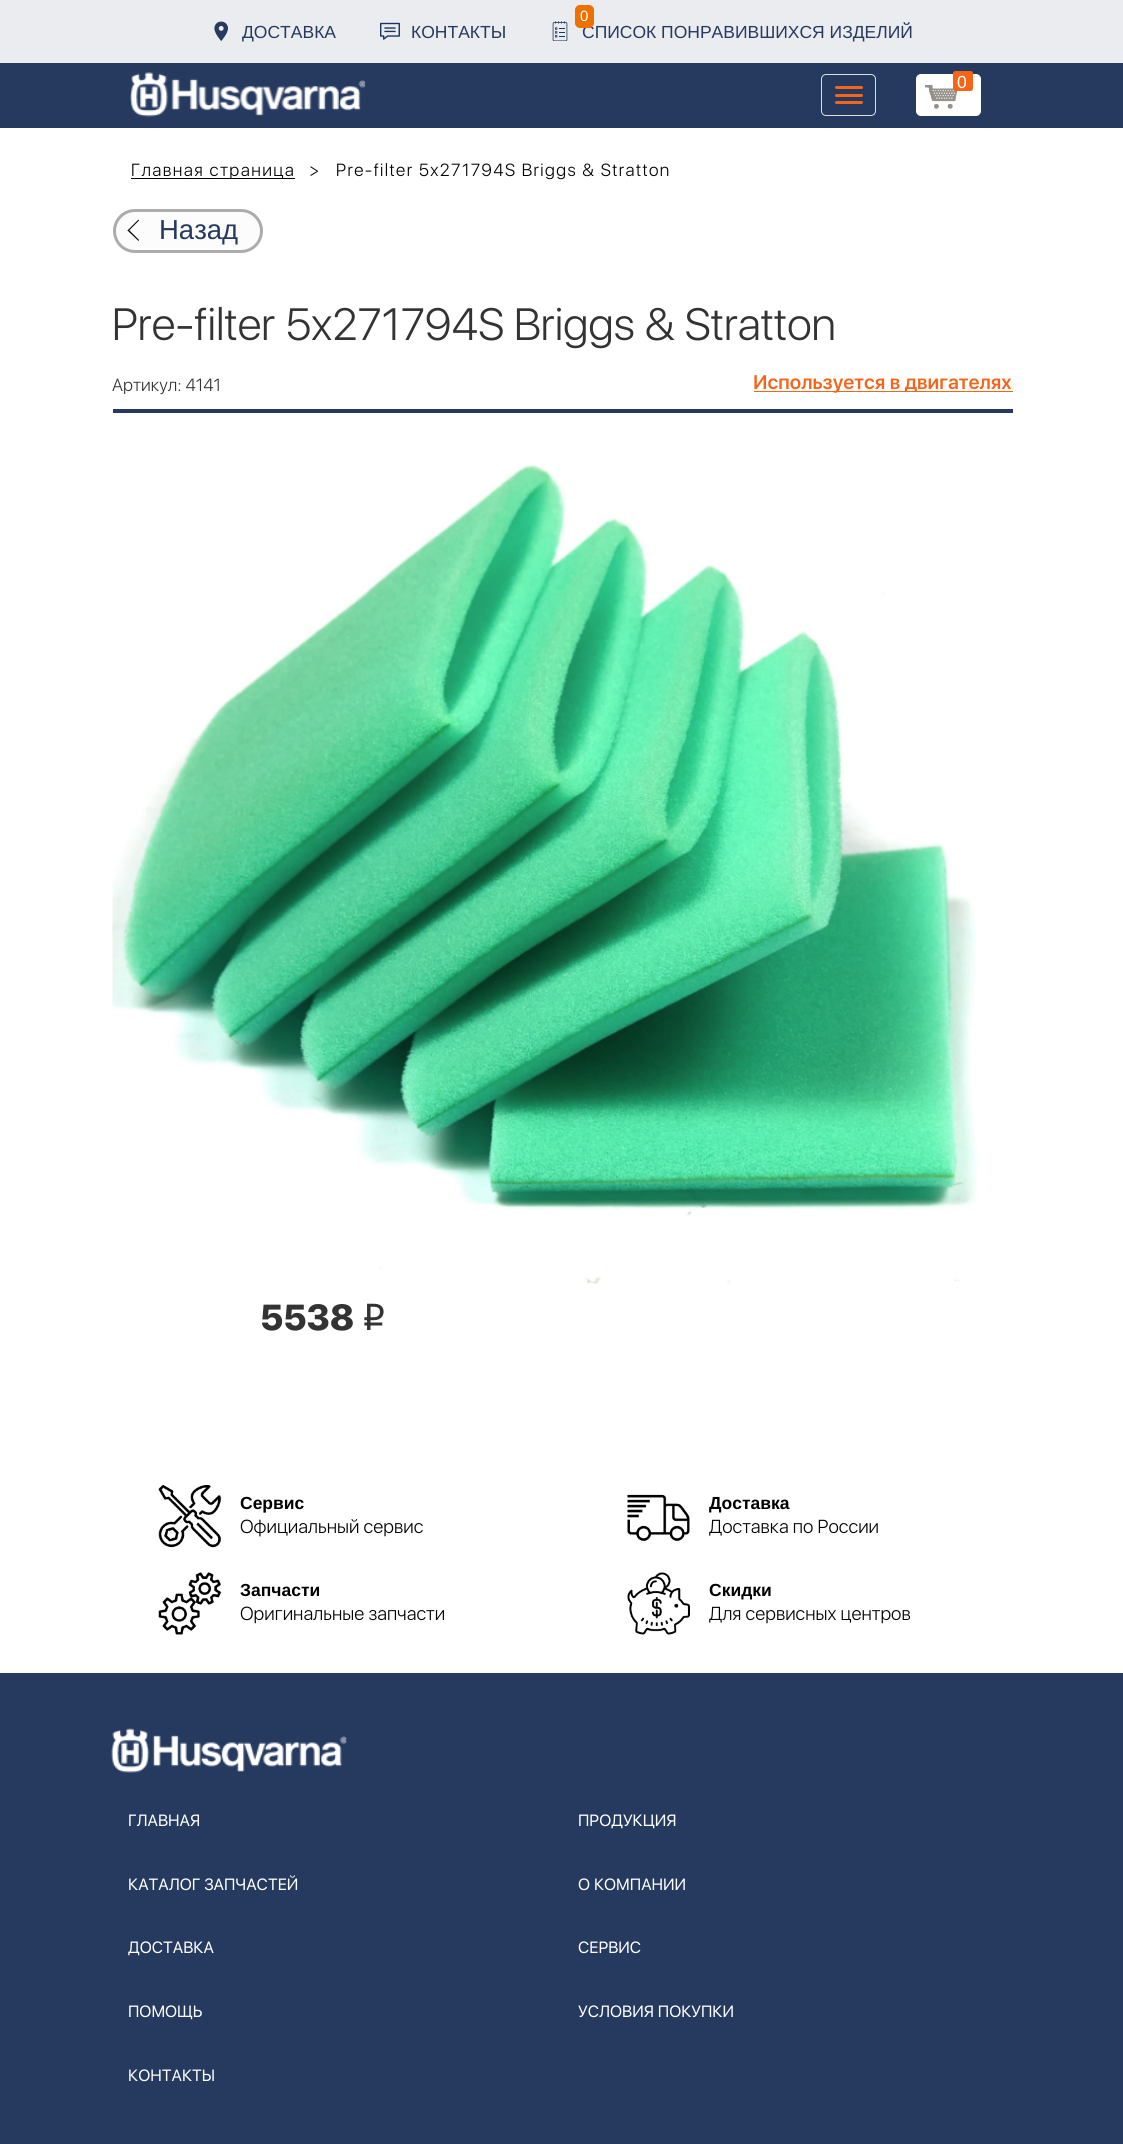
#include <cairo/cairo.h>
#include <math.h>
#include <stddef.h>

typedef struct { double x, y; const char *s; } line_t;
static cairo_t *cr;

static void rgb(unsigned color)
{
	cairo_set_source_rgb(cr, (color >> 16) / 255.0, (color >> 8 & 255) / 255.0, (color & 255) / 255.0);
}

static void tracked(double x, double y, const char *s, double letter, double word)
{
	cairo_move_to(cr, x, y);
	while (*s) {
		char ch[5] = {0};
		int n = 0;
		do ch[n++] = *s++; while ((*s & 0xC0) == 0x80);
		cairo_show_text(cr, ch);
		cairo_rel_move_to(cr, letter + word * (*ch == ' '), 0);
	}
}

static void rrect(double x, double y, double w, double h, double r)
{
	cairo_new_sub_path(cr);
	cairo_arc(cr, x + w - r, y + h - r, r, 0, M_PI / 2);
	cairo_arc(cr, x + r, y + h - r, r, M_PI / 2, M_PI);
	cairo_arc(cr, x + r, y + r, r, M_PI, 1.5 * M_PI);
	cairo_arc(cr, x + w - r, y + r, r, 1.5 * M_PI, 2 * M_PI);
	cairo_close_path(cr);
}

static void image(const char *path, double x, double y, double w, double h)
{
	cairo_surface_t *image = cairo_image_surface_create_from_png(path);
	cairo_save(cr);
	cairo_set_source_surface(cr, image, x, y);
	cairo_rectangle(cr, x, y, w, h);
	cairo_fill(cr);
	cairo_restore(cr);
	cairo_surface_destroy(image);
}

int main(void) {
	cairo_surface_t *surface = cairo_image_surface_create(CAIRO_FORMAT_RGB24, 1123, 2144);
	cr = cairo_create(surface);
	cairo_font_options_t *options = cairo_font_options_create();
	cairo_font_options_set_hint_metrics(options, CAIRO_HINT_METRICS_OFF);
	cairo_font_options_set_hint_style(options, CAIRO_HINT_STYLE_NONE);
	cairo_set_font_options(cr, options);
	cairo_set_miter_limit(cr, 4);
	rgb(0xffffff);
	cairo_paint(cr);
	rgb(0xeaecf0);
	cairo_rectangle(cr, 0, 0, 1123, 63);
	cairo_fill(cr);
	image("img/1.png", 214, 21, 14, 20);
	image("img/2.png", 380, 22, 20, 18);
	image("img/3.png", 552, 21, 16, 20);
	rgb(0x263a5f);
	cairo_rectangle(cr, 0, 63, 1123, 65);
	cairo_fill(cr);
	image("img/4.png", 130, 72, 236, 45);
	rrect(821.5, 74.5, 54, 41, 4.5);
	rgb(0xdddddd);
	cairo_set_line_width(cr, 1);
	cairo_stroke(cr);
	rgb(0xf4651a);
	rrect(835, 86, 28, 3, 1.5);
	cairo_fill(cr);
	rrect(835, 94, 28, 3, 1.5);
	cairo_fill(cr);
	rrect(835, 101, 28, 3, 1.5);
	cairo_fill(cr);
	rgb(0xffffff);
	rrect(916, 74, 65, 42, 5);
	cairo_fill(cr);
	image("img/5.png", 925, 85, 33, 24);
	rgb(0xf4651a);
	rrect(953, 71, 20, 20, 2.5);
	cairo_fill(cr);
	rgb(0x000000);
	cairo_rectangle(cr, 131, 178, 164, 1);
	cairo_fill(cr);
	rgb(0xfcfcfc);
	rrect(114.5, 210.5, 147, 41, 20.5);
	cairo_fill_preserve(cr);
	rgb(0xacacac);
	cairo_set_line_width(cr, 3);
	cairo_stroke(cr);
	rgb(0x000000);
	cairo_new_path(cr);
	cairo_move_to(cr, 127.5, 230.5);
	cairo_line_to(cr, 138.5, 219.5);
	cairo_line_to(cr, 139, 220.5);
	cairo_line_to(cr, 128.5, 231);
	cairo_close_path(cr);
	cairo_fill(cr);
	cairo_new_path(cr);
	cairo_move_to(cr, 127.5, 230.5);
	cairo_line_to(cr, 128.5, 229.5);
	cairo_line_to(cr, 139, 240);
	cairo_line_to(cr, 138.5, 241);
	cairo_close_path(cr);
	cairo_fill(cr);
	rgb(0xf4651a);
	cairo_rectangle(cr, 754, 391, 259, 1);
	cairo_fill(cr);
	rgb(0x263a5f);
	cairo_rectangle(cr, 113, 409, 900, 4);
	cairo_fill(cr);
	image("img/6.png", 112, 464, 865, 821);
	image("img/7.png", 158, 1485, 64, 63);
	image("img/8.png", 627, 1494, 63, 48);
	image("img/9.png", 158, 1572, 64, 63);
	image("img/10.png", 627, 1572, 63, 63);
	cairo_rectangle(cr, 0, 1673, 1123, 471);
	cairo_fill(cr);
	image("img/11.png", 111, 1728, 236, 45);
	cairo_select_font_face(cr, "Liberation Sans", CAIRO_FONT_SLANT_NORMAL, CAIRO_FONT_WEIGHT_NORMAL);
	cairo_set_font_size(cr, 17.5);
	{
		static const line_t items[] = {
			{242, 38, "ДОСТАВКА"},
			{411, 38, "КОНТАКТЫ"},
			{582, 38, "СПИСОК ПОНРАВИВШИХСЯ ИЗДЕЛИЙ"},
		};
		for (size_t i = 0; i < sizeof items / sizeof *items; i++) {
			cairo_move_to(cr, items[i].x, items[i].y);
			cairo_show_text(cr, items[i].s);
		}
	}
	rgb(0xed7102);
	rrect(575, 5, 19, 23, 5);
	cairo_fill(cr);
	cairo_set_font_size(cr, 15);
	rgb(0xffffff);
	cairo_move_to(cr, 580, 21);
	cairo_show_text(cr, "0");
	cairo_set_font_size(cr, 17.5);
	cairo_move_to(cr, 957, 88);
	cairo_show_text(cr, "0");
	cairo_select_font_face(cr, "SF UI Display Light", CAIRO_FONT_SLANT_NORMAL, CAIRO_FONT_WEIGHT_NORMAL);
	rgb(0x000000);
	{
		static const line_t items[] = {
			{131, 176, "Главная страница"},
			{309, 176, ">"},
			{336, 176, "Pre-filter 5x271794S Briggs & Stratton"},
		};
		for (size_t i = 0; i < sizeof items / sizeof *items; i++) {
			tracked(items[i].x, items[i].y, items[i].s, 1.4, 0);
		}
	}
	cairo_select_font_face(cr, "Liberation Sans", CAIRO_FONT_SLANT_NORMAL, CAIRO_FONT_WEIGHT_NORMAL);
	cairo_set_font_size(cr, 27.5);
	rgb(0x263a5f);
	cairo_move_to(cr, 159, 239);
	cairo_show_text(cr, "Назад");
	cairo_select_font_face(cr, "SF UI Display Light", CAIRO_FONT_SLANT_NORMAL, CAIRO_FONT_WEIGHT_NORMAL);
	cairo_set_font_size(cr, 45);
	rgb(0x333333);
	cairo_move_to(cr, 112, 340);
	cairo_show_text(cr, "Pre-filter 5x271794S Briggs & Stratton");
	cairo_set_font_size(cr, 17.5);
	cairo_move_to(cr, 112, 391);
	cairo_show_text(cr, "Артикул: 4141");
	cairo_select_font_face(cr, "SF UI Display SemiBold", CAIRO_FONT_SLANT_NORMAL, CAIRO_FONT_WEIGHT_NORMAL);
	cairo_set_font_size(cr, 20);
	rgb(0xf4651a);
	cairo_move_to(cr, 753, 389);
	cairo_show_text(cr, "Используется в двигателях");
	cairo_select_font_face(cr, "SF UI Display Black", CAIRO_FONT_SLANT_NORMAL, CAIRO_FONT_WEIGHT_NORMAL);
	cairo_set_font_size(cr, 37.5);
	rgb(0x333333);
	cairo_move_to(cr, 260, 1330);
	cairo_show_text(cr, "5538");
	cairo_select_font_face(cr, "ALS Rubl", CAIRO_FONT_SLANT_NORMAL, CAIRO_FONT_WEIGHT_NORMAL);
	cairo_move_to(cr, 361, 1330);
	cairo_show_text(cr, "i");
	cairo_select_font_face(cr, "Liberation Sans", CAIRO_FONT_SLANT_NORMAL, CAIRO_FONT_WEIGHT_BOLD);
	cairo_set_font_size(cr, 17.5);
	rgb(0x000000);
	cairo_move_to(cr, 240, 1509);
	cairo_show_text(cr, "Сервис");
	cairo_select_font_face(cr, "SF UI Display Light", CAIRO_FONT_SLANT_NORMAL, CAIRO_FONT_WEIGHT_NORMAL);
	cairo_set_font_size(cr, 18.75);
	cairo_move_to(cr, 240, 1533);
	cairo_show_text(cr, "Официальный сервис");
	cairo_select_font_face(cr, "Liberation Sans", CAIRO_FONT_SLANT_NORMAL, CAIRO_FONT_WEIGHT_BOLD);
	cairo_set_font_size(cr, 17.5);
	cairo_move_to(cr, 709, 1509);
	cairo_show_text(cr, "Доставка");
	cairo_select_font_face(cr, "SF UI Display Light", CAIRO_FONT_SLANT_NORMAL, CAIRO_FONT_WEIGHT_NORMAL);
	cairo_set_font_size(cr, 18.75);
	cairo_move_to(cr, 709, 1533);
	cairo_show_text(cr, "Доставка по России");
	cairo_select_font_face(cr, "Liberation Sans", CAIRO_FONT_SLANT_NORMAL, CAIRO_FONT_WEIGHT_BOLD);
	cairo_set_font_size(cr, 17.5);
	cairo_move_to(cr, 240, 1596);
	cairo_show_text(cr, "Запчасти");
	cairo_select_font_face(cr, "SF UI Display Light", CAIRO_FONT_SLANT_NORMAL, CAIRO_FONT_WEIGHT_NORMAL);
	cairo_set_font_size(cr, 18.75);
	cairo_move_to(cr, 240, 1620);
	cairo_show_text(cr, "Оригинальные запчасти");
	cairo_select_font_face(cr, "Liberation Sans", CAIRO_FONT_SLANT_NORMAL, CAIRO_FONT_WEIGHT_BOLD);
	cairo_set_font_size(cr, 17.5);
	cairo_move_to(cr, 709, 1596);
	cairo_show_text(cr, "Скидки");
	cairo_select_font_face(cr, "SF UI Display Light", CAIRO_FONT_SLANT_NORMAL, CAIRO_FONT_WEIGHT_NORMAL);
	cairo_set_font_size(cr, 18.75);
	cairo_move_to(cr, 709, 1620);
	cairo_show_text(cr, "Для сервисных центров");
	cairo_select_font_face(cr, "SF UI Display", CAIRO_FONT_SLANT_NORMAL, CAIRO_FONT_WEIGHT_NORMAL);
	cairo_set_font_size(cr, 16.25);
	rgb(0xffffff);
	{
		static const line_t items[] = {
			{128, 1826, "ГЛАВНАЯ"},
			{578, 1826, "ПРОДУКЦИЯ"},
			{128, 1890, "КАТАЛОГ ЗАПЧАСТЕЙ"},
			{578, 1890, "О КОМПАНИИ"},
			{128, 1953, "ДОСТАВКА"},
			{578, 1953, "СЕРВИС"},
			{128, 2017, "ПОМОЩЬ"},
			{578, 2017, "УСЛОВИЯ ПОКУПКИ"},
			{128, 2081, "КОНТАКТЫ"},
		};
		for (size_t i = 0; i < sizeof items / sizeof *items; i++) {
			cairo_move_to(cr, items[i].x, items[i].y);
			cairo_show_text(cr, items[i].s);
		}
	}
	cairo_surface_write_to_png(surface, "page.png");
	cairo_font_options_destroy(options);
	cairo_destroy(cr);
	cairo_surface_destroy(surface);
	return 0;
}
